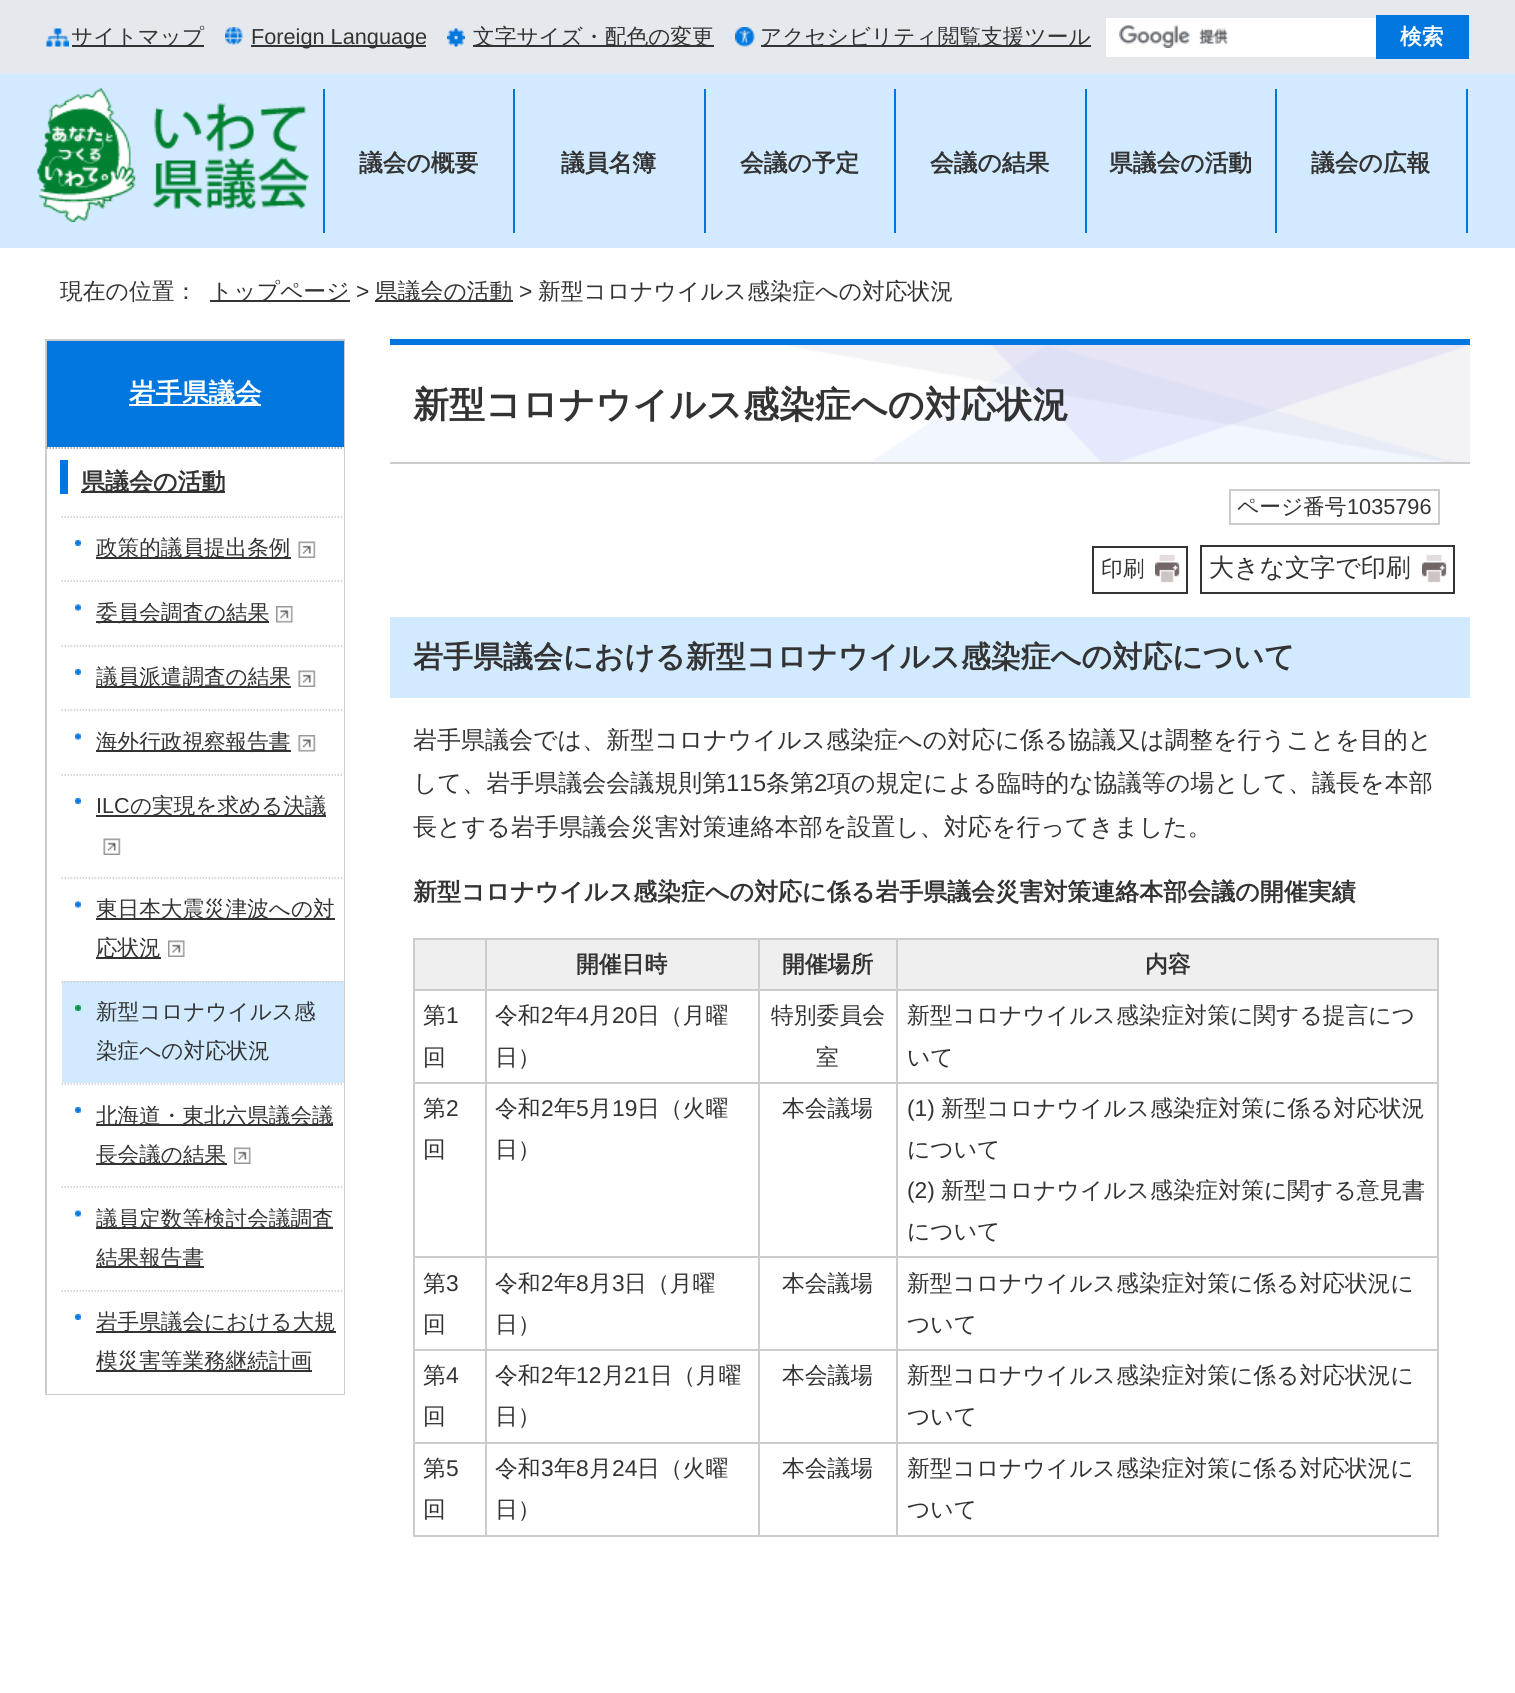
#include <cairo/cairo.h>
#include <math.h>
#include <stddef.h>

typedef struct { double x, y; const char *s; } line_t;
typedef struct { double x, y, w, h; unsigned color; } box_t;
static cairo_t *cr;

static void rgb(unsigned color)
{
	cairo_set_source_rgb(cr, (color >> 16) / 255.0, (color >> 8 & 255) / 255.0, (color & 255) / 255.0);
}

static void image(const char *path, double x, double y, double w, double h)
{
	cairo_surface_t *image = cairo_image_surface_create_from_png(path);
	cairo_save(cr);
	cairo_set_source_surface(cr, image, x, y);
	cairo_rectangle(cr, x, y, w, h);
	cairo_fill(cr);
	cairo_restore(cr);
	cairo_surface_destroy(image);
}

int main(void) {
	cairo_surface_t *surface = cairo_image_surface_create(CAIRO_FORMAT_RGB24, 1515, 1693);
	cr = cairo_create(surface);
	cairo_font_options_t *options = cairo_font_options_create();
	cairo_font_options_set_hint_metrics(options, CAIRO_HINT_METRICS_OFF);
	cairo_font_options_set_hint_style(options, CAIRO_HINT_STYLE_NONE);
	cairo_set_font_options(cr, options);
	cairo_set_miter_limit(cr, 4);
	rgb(0xffffff);
	cairo_paint(cr);
	rgb(0xe5e8ed);
	cairo_rectangle(cr, 0, 0, 1515, 74);
	cairo_fill(cr);
	image("img/1.png", 46, 28, 23, 19);
	rgb(0x333333);
	cairo_rectangle(cr, 72, 45, 132, 2);
	cairo_fill(cr);
	image("img/2.png", 225, 27, 18, 18);
	cairo_rectangle(cr, 251, 45, 175, 2);
	cairo_fill(cr);
	image("img/3.png", 447, 28, 18, 19);
	cairo_rectangle(cr, 473, 45, 241, 2);
	cairo_fill(cr);
	image("img/4.png", 735, 27, 20, 20);
	cairo_rectangle(cr, 761, 45, 330, 2);
	cairo_fill(cr);
	rgb(0xffffff);
	cairo_rectangle(cr, 1106, 18, 270, 39);
	cairo_fill(cr);
	image("img/5.png", 1119, 25, 110, 23);
	rgb(0x0076df);
	cairo_rectangle(cr, 1376, 15, 93, 44);
	cairo_fill(cr);
	rgb(0xd2eaff);
	cairo_rectangle(cr, 0, 74, 1515, 174);
	cairo_fill(cr);
	image("img/6.png", 37, 88, 272, 134);
	{
		static const box_t items[] = {
			{323, 89, 2, 144, 0x0076df},
			{513, 89, 2, 144, 0x0076df},
			{704, 89, 2, 144, 0x0076df},
			{894, 89, 2, 144, 0x0076df},
			{1085, 89, 2, 144, 0x0076df},
			{1466, 89, 2, 144, 0x0076df},
			{1275, 89, 2, 144, 0x0076df},
			{210, 300, 140, 2, 0x333333},
			{375, 300, 138, 2, 0x333333},
		};
		for (size_t i = 0; i < sizeof items / sizeof *items; i++) {
			rgb(items[i].color);
			cairo_rectangle(cr, items[i].x, items[i].y, items[i].w, items[i].h);
			cairo_fill(cr);
		}
	}
	cairo_rectangle(cr, 46, 340, 298, 1054);
	rgb(0xcccccc);
	cairo_stroke(cr);
	{
		static const box_t items[] = {
			{47, 341, 297, 106, 0x0076df},
			{129, 404, 132, 2, 0xffffff},
			{343, 447, 1, 69, 0xffffff},
			{60, 460, 8, 34, 0x0076df},
		};
		for (size_t i = 0; i < sizeof items / sizeof *items; i++) {
			rgb(items[i].color);
			cairo_rectangle(cr, items[i].x, items[i].y, items[i].w, items[i].h);
			cairo_fill(cr);
		}
	}
	cairo_new_path(cr);
	cairo_move_to(cr, 46.5, 448);
	cairo_line_to(cr, 343.5, 448);
	rgb(0x999999);
	cairo_set_line_width(cr, 1.5);
	cairo_set_dash(cr, (double[]){1.5, 1.5}, 2, 0);
	cairo_stroke(cr);
	rgb(0x333333);
	cairo_rectangle(cr, 81, 491, 144, 2);
	cairo_fill(cr);
	rgb(0xffffff);
	cairo_rectangle(cr, 47, 516, 297, 878);
	cairo_fill(cr);
	image("img/7.png", 75, 540, 6, 6);
	cairo_new_path(cr);
	cairo_move_to(cr, 61.5, 517);
	cairo_line_to(cr, 343.5, 517);
	rgb(0xcccccc);
	cairo_stroke(cr);
	rgb(0x333333);
	cairo_rectangle(cr, 96, 557, 195, 2);
	cairo_fill(cr);
	image("img/8.png", 298, 541, 18, 17);
	image("img/9.png", 75, 604, 6, 7);
	cairo_new_path(cr);
	cairo_move_to(cr, 61.5, 581);
	cairo_line_to(cr, 343.5, 581);
	rgb(0xcccccc);
	cairo_stroke(cr);
	rgb(0x333333);
	cairo_rectangle(cr, 96, 621, 173, 2);
	cairo_fill(cr);
	image("img/10.png", 276, 606, 17, 17);
	image("img/7.png", 75, 669, 6, 6);
	cairo_new_path(cr);
	cairo_move_to(cr, 61.5, 646);
	cairo_line_to(cr, 343.5, 646);
	rgb(0xcccccc);
	cairo_stroke(cr);
	rgb(0x333333);
	cairo_rectangle(cr, 96, 686, 195, 2);
	cairo_fill(cr);
	image("img/8.png", 298, 670, 18, 17);
	image("img/9.png", 75, 733, 6, 7);
	cairo_new_path(cr);
	cairo_move_to(cr, 61.5, 710);
	cairo_line_to(cr, 343.5, 710);
	rgb(0xcccccc);
	cairo_stroke(cr);
	rgb(0x333333);
	cairo_rectangle(cr, 96, 750, 195, 2);
	cairo_fill(cr);
	image("img/11.png", 298, 735, 18, 17);
	image("img/7.png", 75, 798, 6, 6);
	cairo_new_path(cr);
	cairo_move_to(cr, 61.5, 775);
	cairo_line_to(cr, 343.5, 775);
	rgb(0xcccccc);
	cairo_stroke(cr);
	rgb(0x333333);
	cairo_rectangle(cr, 96, 815, 230, 2);
	cairo_fill(cr);
	image("img/12.png", 103, 838, 18, 17);
	image("img/9.png", 75, 901, 6, 7);
	cairo_new_path(cr);
	cairo_move_to(cr, 61.5, 878);
	cairo_line_to(cr, 343.5, 878);
	rgb(0xcccccc);
	cairo_stroke(cr);
	rgb(0x333333);
	cairo_rectangle(cr, 96, 918, 239, 2);
	cairo_fill(cr);
	cairo_rectangle(cr, 96, 957, 65, 2);
	cairo_fill(cr);
	image("img/13.png", 168, 940, 17, 17);
	rgb(0xd2eaff);
	cairo_rectangle(cr, 62, 981, 282, 102);
	cairo_fill(cr);
	image("img/14.png", 75, 1005, 6, 6);
	cairo_new_path(cr);
	cairo_move_to(cr, 61.5, 982);
	cairo_line_to(cr, 343.5, 982);
	rgb(0xcccccc);
	cairo_stroke(cr);
	image("img/7.png", 75, 1107, 6, 6);
	cairo_new_path(cr);
	cairo_move_to(cr, 61.5, 1084);
	cairo_line_to(cr, 343.5, 1084);
	cairo_stroke(cr);
	rgb(0x333333);
	cairo_rectangle(cr, 96, 1124, 237, 2);
	cairo_fill(cr);
	cairo_rectangle(cr, 96, 1163, 131, 2);
	cairo_fill(cr);
	image("img/13.png", 234, 1147, 17, 17);
	image("img/9.png", 75, 1210, 6, 7);
	cairo_new_path(cr);
	cairo_move_to(cr, 61.5, 1187);
	cairo_line_to(cr, 343.5, 1187);
	rgb(0xcccccc);
	cairo_stroke(cr);
	rgb(0x333333);
	cairo_rectangle(cr, 96, 1227, 237, 2);
	cairo_fill(cr);
	cairo_rectangle(cr, 96, 1266, 108, 2);
	cairo_fill(cr);
	image("img/7.png", 75, 1314, 6, 6);
	cairo_new_path(cr);
	cairo_move_to(cr, 61.5, 1291);
	cairo_line_to(cr, 343.5, 1291);
	rgb(0xcccccc);
	cairo_stroke(cr);
	rgb(0x333333);
	cairo_rectangle(cr, 96, 1331, 240, 2);
	cairo_fill(cr);
	cairo_rectangle(cr, 96, 1370, 216, 2);
	cairo_fill(cr);
	image("img/15.png", 785, 345, 685, 117);
	rgb(0x0076df);
	cairo_rectangle(cr, 390, 339, 1080, 6);
	cairo_fill(cr);
	rgb(0xcccccc);
	cairo_rectangle(cr, 390, 462, 1080, 2);
	cairo_fill(cr);
	cairo_rectangle(cr, 1230, 490, 209, 34);
	cairo_set_line_width(cr, 2);
	cairo_set_dash(cr, NULL, 0, 0);
	cairo_stroke(cr);
	cairo_rectangle(cr, 1093, 547, 94, 46);
	rgb(0x333333);
	cairo_stroke(cr);
	image("img/16.png", 1155, 555, 25, 28);
	cairo_rectangle(cr, 1201, 546, 253, 47);
	cairo_stroke(cr);
	image("img/17.png", 1422, 555, 25, 28);
	{
		static const box_t items[] = {
			{390, 617, 1080, 81, 0xd2eaff},
			{413, 938, 1026, 2, 0xcccccc},
			{1437, 938, 2, 598, 0xcccccc},
			{413, 1535, 1026, 2, 0xcccccc},
			{413, 938, 2, 598, 0xcccccc},
			{415, 940, 70, 49, 0xefefef},
			{487, 940, 271, 49, 0xefefef},
			{896, 989, 543, 2, 0xcccccc},
			{896, 1082, 543, 2, 0xcccccc},
			{896, 1256, 543, 2, 0xcccccc},
			{896, 1349, 543, 2, 0xcccccc},
			{896, 1442, 543, 2, 0xcccccc},
			{896, 1442, 2, 94, 0xcccccc},
			{758, 1442, 139, 2, 0xcccccc},
			{896, 1349, 2, 94, 0xcccccc},
			{758, 1349, 139, 2, 0xcccccc},
			{896, 1256, 2, 94, 0xcccccc},
			{758, 1256, 139, 2, 0xcccccc},
			{896, 1082, 2, 175, 0xcccccc},
			{758, 1082, 139, 2, 0xcccccc},
			{896, 989, 2, 94, 0xcccccc},
			{758, 989, 139, 2, 0xcccccc},
			{758, 1442, 2, 94, 0xcccccc},
			{485, 1442, 274, 2, 0xcccccc},
			{758, 1349, 2, 94, 0xcccccc},
			{485, 1349, 274, 2, 0xcccccc},
			{758, 1256, 2, 94, 0xcccccc},
			{485, 1256, 274, 2, 0xcccccc},
			{758, 1082, 2, 175, 0xcccccc},
			{485, 1082, 274, 2, 0xcccccc},
			{758, 989, 2, 94, 0xcccccc},
			{485, 989, 274, 2, 0xcccccc},
			{485, 1442, 2, 94, 0xcccccc},
			{413, 1442, 73, 2, 0xcccccc},
			{485, 1349, 2, 94, 0xcccccc},
			{413, 1349, 73, 2, 0xcccccc},
			{485, 1256, 2, 94, 0xcccccc},
			{413, 1256, 73, 2, 0xcccccc},
			{485, 1082, 2, 175, 0xcccccc},
			{413, 1082, 73, 2, 0xcccccc},
			{485, 989, 2, 94, 0xcccccc},
			{413, 989, 73, 2, 0xcccccc},
			{485, 938, 2, 52, 0xcccccc},
			{760, 940, 136, 49, 0xefefef},
			{758, 938, 2, 52, 0xcccccc},
			{898, 940, 539, 49, 0xefefef},
			{896, 938, 2, 52, 0xcccccc},
		};
		for (size_t i = 0; i < sizeof items / sizeof *items; i++) {
			rgb(items[i].color);
			cairo_rectangle(cr, items[i].x, items[i].y, items[i].w, items[i].h);
			cairo_fill(cr);
		}
	}
	cairo_select_font_face(cr, "WenQuanYi Zen Hei Medium", CAIRO_FONT_SLANT_NORMAL, CAIRO_FONT_WEIGHT_NORMAL);
	cairo_set_font_size(cr, 21.7);
	rgb(0x333333);
	cairo_move_to(cr, 71, 44);
	cairo_show_text(cr, "サイトマップ");
	cairo_select_font_face(cr, "Liberation Sans", CAIRO_FONT_SLANT_NORMAL, CAIRO_FONT_WEIGHT_NORMAL);
	cairo_move_to(cr, 251, 44);
	cairo_show_text(cr, "Foreign Language");
	cairo_select_font_face(cr, "WenQuanYi Zen Hei Medium", CAIRO_FONT_SLANT_NORMAL, CAIRO_FONT_WEIGHT_NORMAL);
	cairo_move_to(cr, 473, 44);
	cairo_show_text(cr, "文字サイズ・配色の変更");
	cairo_move_to(cr, 760, 44);
	cairo_show_text(cr, "アクセシビリティ閲覧支援ツール");
	cairo_select_font_face(cr, "WenQuanYi Zen Hei", CAIRO_FONT_SLANT_NORMAL, CAIRO_FONT_WEIGHT_BOLD);
	rgb(0xffffff);
	cairo_move_to(cr, 1400, 44);
	cairo_show_text(cr, "検索");
	cairo_set_font_size(cr, 23.75);
	rgb(0x333333);
	{
		static const line_t items[] = {
			{359, 171, "議会の概要"},
			{561, 171, "議員名簿"},
			{740, 171, "会議の予定"},
			{930, 171, "会議の結果"},
			{1109, 171, "県議会の活動"},
			{1311, 171, "議会の広報"},
		};
		for (size_t i = 0; i < sizeof items / sizeof *items; i++) {
			cairo_move_to(cr, items[i].x, items[i].y);
			cairo_show_text(cr, items[i].s);
		}
	}
	cairo_select_font_face(cr, "WenQuanYi Zen Hei Medium", CAIRO_FONT_SLANT_NORMAL, CAIRO_FONT_WEIGHT_NORMAL);
	cairo_set_font_size(cr, 22.8);
	cairo_move_to(cr, 60, 299);
	cairo_show_text(cr, "現在の位置：");
	cairo_move_to(cr, 210, 299);
	cairo_show_text(cr, "トップページ");
	cairo_select_font_face(cr, "Liberation Sans", CAIRO_FONT_SLANT_NORMAL, CAIRO_FONT_WEIGHT_NORMAL);
	cairo_move_to(cr, 356, 299);
	cairo_show_text(cr, ">");
	cairo_select_font_face(cr, "WenQuanYi Zen Hei Medium", CAIRO_FONT_SLANT_NORMAL, CAIRO_FONT_WEIGHT_NORMAL);
	cairo_move_to(cr, 375, 299);
	cairo_show_text(cr, "県議会の活動");
	cairo_select_font_face(cr, "Liberation Sans", CAIRO_FONT_SLANT_NORMAL, CAIRO_FONT_WEIGHT_NORMAL);
	cairo_move_to(cr, 519, 299);
	cairo_show_text(cr, ">");
	cairo_select_font_face(cr, "WenQuanYi Zen Hei Medium", CAIRO_FONT_SLANT_NORMAL, CAIRO_FONT_WEIGHT_NORMAL);
	cairo_move_to(cr, 538, 299);
	cairo_show_text(cr, "新型コロナウイルス感染症への対応状況");
	cairo_select_font_face(cr, "WenQuanYi Zen Hei", CAIRO_FONT_SLANT_NORMAL, CAIRO_FONT_WEIGHT_BOLD);
	cairo_set_font_size(cr, 26.5);
	rgb(0xffffff);
	cairo_move_to(cr, 129, 402);
	cairo_show_text(cr, "岩手県議会");
	cairo_set_font_size(cr, 24);
	rgb(0x333333);
	cairo_move_to(cr, 81, 490);
	cairo_show_text(cr, "県議会の活動");
	cairo_select_font_face(cr, "WenQuanYi Zen Hei Medium", CAIRO_FONT_SLANT_NORMAL, CAIRO_FONT_WEIGHT_NORMAL);
	cairo_set_font_size(cr, 21.6);
	{
		static const line_t items[] = {
			{96, 555, "政策的議員提出条例"},
			{96, 620, "委員会調査の結果"},
			{96, 684, "議員派遣調査の結果"},
			{96, 749, "海外行政視察報告書"},
		};
		for (size_t i = 0; i < sizeof items / sizeof *items; i++) {
			cairo_move_to(cr, items[i].x, items[i].y);
			cairo_show_text(cr, items[i].s);
		}
	}
	cairo_select_font_face(cr, "Liberation Sans", CAIRO_FONT_SLANT_NORMAL, CAIRO_FONT_WEIGHT_NORMAL);
	cairo_move_to(cr, 96, 813);
	cairo_show_text(cr, "ILC");
	cairo_select_font_face(cr, "WenQuanYi Zen Hei Medium", CAIRO_FONT_SLANT_NORMAL, CAIRO_FONT_WEIGHT_NORMAL);
	{
		static const line_t items[] = {
			{130, 813, "の実現を求める決議"},
			{96, 916, "東日本大震災津波への対"},
			{96, 955, "応状況"},
			{96, 1019, "新型コロナウイルス感"},
			{96, 1058, "染症への対応状況"},
			{96, 1123, "北海道・東北六県議会議"},
			{96, 1162, "長会議の結果"},
			{96, 1226, "議員定数等検討会議調査"},
			{96, 1265, "結果報告書"},
			{96, 1329, "岩手県議会における大規"},
			{96, 1368, "模災害等業務継続計画"},
		};
		for (size_t i = 0; i < sizeof items / sizeof *items; i++) {
			cairo_move_to(cr, items[i].x, items[i].y);
			cairo_show_text(cr, items[i].s);
		}
	}
	cairo_select_font_face(cr, "WenQuanYi Zen Hei", CAIRO_FONT_SLANT_NORMAL, CAIRO_FONT_WEIGHT_BOLD);
	cairo_set_font_size(cr, 36);
	cairo_move_to(cr, 413, 417);
	cairo_show_text(cr, "新型コロナウイルス感染症への対応状況");
	cairo_select_font_face(cr, "WenQuanYi Zen Hei Medium", CAIRO_FONT_SLANT_NORMAL, CAIRO_FONT_WEIGHT_NORMAL);
	cairo_set_font_size(cr, 21.7);
	cairo_move_to(cr, 1237, 514);
	cairo_show_text(cr, "ページ番号");
	cairo_select_font_face(cr, "Liberation Sans", CAIRO_FONT_SLANT_NORMAL, CAIRO_FONT_WEIGHT_NORMAL);
	cairo_move_to(cr, 1347, 514);
	cairo_show_text(cr, "1035796");
	cairo_select_font_face(cr, "WenQuanYi Zen Hei Medium", CAIRO_FONT_SLANT_NORMAL, CAIRO_FONT_WEIGHT_NORMAL);
	cairo_move_to(cr, 1101, 576);
	cairo_show_text(cr, "印刷");
	cairo_set_font_size(cr, 25);
	cairo_move_to(cr, 1209, 576);
	cairo_show_text(cr, "大きな文字で印刷");
	cairo_select_font_face(cr, "WenQuanYi Zen Hei", CAIRO_FONT_SLANT_NORMAL, CAIRO_FONT_WEIGHT_BOLD);
	cairo_set_font_size(cr, 30);
	cairo_move_to(cr, 413, 667);
	cairo_show_text(cr, "岩手県議会における新型コロナウイルス感染症への対応について");
	cairo_select_font_face(cr, "WenQuanYi Zen Hei Medium", CAIRO_FONT_SLANT_NORMAL, CAIRO_FONT_WEIGHT_NORMAL);
	cairo_set_font_size(cr, 24);
	cairo_move_to(cr, 413, 748);
	cairo_show_text(cr, "岩手県議会では、新型コロナウイルス感染症への対応に係る協議又は調整を行うことを目的と");
	cairo_move_to(cr, 413, 791);
	cairo_show_text(cr, "して、岩手県議会会議規則第");
	cairo_select_font_face(cr, "Liberation Sans", CAIRO_FONT_SLANT_NORMAL, CAIRO_FONT_WEIGHT_NORMAL);
	cairo_move_to(cr, 726, 791);
	cairo_show_text(cr, "115");
	cairo_select_font_face(cr, "WenQuanYi Zen Hei Medium", CAIRO_FONT_SLANT_NORMAL, CAIRO_FONT_WEIGHT_NORMAL);
	cairo_move_to(cr, 766, 791);
	cairo_show_text(cr, "条第");
	cairo_select_font_face(cr, "Liberation Sans", CAIRO_FONT_SLANT_NORMAL, CAIRO_FONT_WEIGHT_NORMAL);
	cairo_move_to(cr, 814, 791);
	cairo_show_text(cr, "2");
	cairo_select_font_face(cr, "WenQuanYi Zen Hei Medium", CAIRO_FONT_SLANT_NORMAL, CAIRO_FONT_WEIGHT_NORMAL);
	cairo_move_to(cr, 827, 791);
	cairo_show_text(cr, "項の規定による臨時的な協議等の場として、議長を本部");
	cairo_move_to(cr, 413, 835);
	cairo_show_text(cr, "長とする岩手県議会災害対策連絡本部を設置し、対応を行ってきました。");
	cairo_select_font_face(cr, "WenQuanYi Zen Hei", CAIRO_FONT_SLANT_NORMAL, CAIRO_FONT_WEIGHT_BOLD);
	cairo_move_to(cr, 413, 900);
	cairo_show_text(cr, "新型コロナウイルス感染症への対応に係る岩手県議会災害対策連絡本部会議の開催実績");
	cairo_set_font_size(cr, 22.8);
	{
		static const line_t items[] = {
			{576, 972, "開催日時"},
			{782, 972, "開催場所"},
			{1145, 972, "内容"},
		};
		for (size_t i = 0; i < sizeof items / sizeof *items; i++) {
			cairo_move_to(cr, items[i].x, items[i].y);
			cairo_show_text(cr, items[i].s);
		}
	}
	cairo_select_font_face(cr, "WenQuanYi Zen Hei Medium", CAIRO_FONT_SLANT_NORMAL, CAIRO_FONT_WEIGHT_NORMAL);
	cairo_move_to(cr, 423, 1023);
	cairo_show_text(cr, "第");
	cairo_select_font_face(cr, "Liberation Sans", CAIRO_FONT_SLANT_NORMAL, CAIRO_FONT_WEIGHT_NORMAL);
	cairo_move_to(cr, 446, 1023);
	cairo_show_text(cr, "1");
	cairo_select_font_face(cr, "WenQuanYi Zen Hei Medium", CAIRO_FONT_SLANT_NORMAL, CAIRO_FONT_WEIGHT_NORMAL);
	cairo_move_to(cr, 423, 1065);
	cairo_show_text(cr, "回");
	cairo_move_to(cr, 495, 1023);
	cairo_show_text(cr, "令和");
	cairo_select_font_face(cr, "Liberation Sans", CAIRO_FONT_SLANT_NORMAL, CAIRO_FONT_WEIGHT_NORMAL);
	cairo_move_to(cr, 541, 1023);
	cairo_show_text(cr, "2");
	cairo_select_font_face(cr, "WenQuanYi Zen Hei Medium", CAIRO_FONT_SLANT_NORMAL, CAIRO_FONT_WEIGHT_NORMAL);
	cairo_move_to(cr, 554, 1023);
	cairo_show_text(cr, "年");
	cairo_select_font_face(cr, "Liberation Sans", CAIRO_FONT_SLANT_NORMAL, CAIRO_FONT_WEIGHT_NORMAL);
	cairo_move_to(cr, 576, 1023);
	cairo_show_text(cr, "4");
	cairo_select_font_face(cr, "WenQuanYi Zen Hei Medium", CAIRO_FONT_SLANT_NORMAL, CAIRO_FONT_WEIGHT_NORMAL);
	cairo_move_to(cr, 589, 1023);
	cairo_show_text(cr, "月");
	cairo_select_font_face(cr, "Liberation Sans", CAIRO_FONT_SLANT_NORMAL, CAIRO_FONT_WEIGHT_NORMAL);
	cairo_move_to(cr, 612, 1023);
	cairo_show_text(cr, "20");
	cairo_select_font_face(cr, "WenQuanYi Zen Hei Medium", CAIRO_FONT_SLANT_NORMAL, CAIRO_FONT_WEIGHT_NORMAL);
	{
		static const line_t items[] = {
			{637, 1023, "日（月曜"},
			{495, 1065, "日）"},
			{771, 1023, "特別委員会"},
			{816, 1065, "室"},
			{907, 1023, "新型コロナウイルス感染症対策に関する提言につ"},
			{907, 1065, "いて"},
			{423, 1116, "第"},
		};
		for (size_t i = 0; i < sizeof items / sizeof *items; i++) {
			cairo_move_to(cr, items[i].x, items[i].y);
			cairo_show_text(cr, items[i].s);
		}
	}
	cairo_select_font_face(cr, "Liberation Sans", CAIRO_FONT_SLANT_NORMAL, CAIRO_FONT_WEIGHT_NORMAL);
	cairo_move_to(cr, 446, 1116);
	cairo_show_text(cr, "2");
	cairo_select_font_face(cr, "WenQuanYi Zen Hei Medium", CAIRO_FONT_SLANT_NORMAL, CAIRO_FONT_WEIGHT_NORMAL);
	cairo_move_to(cr, 423, 1157);
	cairo_show_text(cr, "回");
	cairo_move_to(cr, 495, 1116);
	cairo_show_text(cr, "令和");
	cairo_select_font_face(cr, "Liberation Sans", CAIRO_FONT_SLANT_NORMAL, CAIRO_FONT_WEIGHT_NORMAL);
	cairo_move_to(cr, 541, 1116);
	cairo_show_text(cr, "2");
	cairo_select_font_face(cr, "WenQuanYi Zen Hei Medium", CAIRO_FONT_SLANT_NORMAL, CAIRO_FONT_WEIGHT_NORMAL);
	cairo_move_to(cr, 554, 1116);
	cairo_show_text(cr, "年");
	cairo_select_font_face(cr, "Liberation Sans", CAIRO_FONT_SLANT_NORMAL, CAIRO_FONT_WEIGHT_NORMAL);
	cairo_move_to(cr, 576, 1116);
	cairo_show_text(cr, "5");
	cairo_select_font_face(cr, "WenQuanYi Zen Hei Medium", CAIRO_FONT_SLANT_NORMAL, CAIRO_FONT_WEIGHT_NORMAL);
	cairo_move_to(cr, 589, 1116);
	cairo_show_text(cr, "月");
	cairo_select_font_face(cr, "Liberation Sans", CAIRO_FONT_SLANT_NORMAL, CAIRO_FONT_WEIGHT_NORMAL);
	cairo_move_to(cr, 612, 1116);
	cairo_show_text(cr, "19");
	cairo_select_font_face(cr, "WenQuanYi Zen Hei Medium", CAIRO_FONT_SLANT_NORMAL, CAIRO_FONT_WEIGHT_NORMAL);
	{
		static const line_t items[] = {
			{637, 1116, "日（火曜"},
			{495, 1157, "日）"},
			{782, 1116, "本会議場"},
		};
		for (size_t i = 0; i < sizeof items / sizeof *items; i++) {
			cairo_move_to(cr, items[i].x, items[i].y);
			cairo_show_text(cr, items[i].s);
		}
	}
	cairo_select_font_face(cr, "Liberation Sans", CAIRO_FONT_SLANT_NORMAL, CAIRO_FONT_WEIGHT_NORMAL);
	cairo_move_to(cr, 907, 1116);
	cairo_show_text(cr, "(1)");
	cairo_select_font_face(cr, "WenQuanYi Zen Hei Medium", CAIRO_FONT_SLANT_NORMAL, CAIRO_FONT_WEIGHT_NORMAL);
	cairo_move_to(cr, 941, 1116);
	cairo_show_text(cr, "新型コロナウイルス感染症対策に係る対応状況");
	cairo_move_to(cr, 907, 1157);
	cairo_show_text(cr, "について");
	cairo_select_font_face(cr, "Liberation Sans", CAIRO_FONT_SLANT_NORMAL, CAIRO_FONT_WEIGHT_NORMAL);
	cairo_move_to(cr, 907, 1198);
	cairo_show_text(cr, "(2)");
	cairo_select_font_face(cr, "WenQuanYi Zen Hei Medium", CAIRO_FONT_SLANT_NORMAL, CAIRO_FONT_WEIGHT_NORMAL);
	{
		static const line_t items[] = {
			{941, 1198, "新型コロナウイルス感染症対策に関する意見書"},
			{907, 1239, "について"},
			{423, 1291, "第"},
		};
		for (size_t i = 0; i < sizeof items / sizeof *items; i++) {
			cairo_move_to(cr, items[i].x, items[i].y);
			cairo_show_text(cr, items[i].s);
		}
	}
	cairo_select_font_face(cr, "Liberation Sans", CAIRO_FONT_SLANT_NORMAL, CAIRO_FONT_WEIGHT_NORMAL);
	cairo_move_to(cr, 446, 1291);
	cairo_show_text(cr, "3");
	cairo_select_font_face(cr, "WenQuanYi Zen Hei Medium", CAIRO_FONT_SLANT_NORMAL, CAIRO_FONT_WEIGHT_NORMAL);
	cairo_move_to(cr, 423, 1332);
	cairo_show_text(cr, "回");
	cairo_move_to(cr, 495, 1291);
	cairo_show_text(cr, "令和");
	cairo_select_font_face(cr, "Liberation Sans", CAIRO_FONT_SLANT_NORMAL, CAIRO_FONT_WEIGHT_NORMAL);
	cairo_move_to(cr, 541, 1291);
	cairo_show_text(cr, "2");
	cairo_select_font_face(cr, "WenQuanYi Zen Hei Medium", CAIRO_FONT_SLANT_NORMAL, CAIRO_FONT_WEIGHT_NORMAL);
	cairo_move_to(cr, 554, 1291);
	cairo_show_text(cr, "年");
	cairo_select_font_face(cr, "Liberation Sans", CAIRO_FONT_SLANT_NORMAL, CAIRO_FONT_WEIGHT_NORMAL);
	cairo_move_to(cr, 576, 1291);
	cairo_show_text(cr, "8");
	cairo_select_font_face(cr, "WenQuanYi Zen Hei Medium", CAIRO_FONT_SLANT_NORMAL, CAIRO_FONT_WEIGHT_NORMAL);
	cairo_move_to(cr, 589, 1291);
	cairo_show_text(cr, "月");
	cairo_select_font_face(cr, "Liberation Sans", CAIRO_FONT_SLANT_NORMAL, CAIRO_FONT_WEIGHT_NORMAL);
	cairo_move_to(cr, 612, 1291);
	cairo_show_text(cr, "3");
	cairo_select_font_face(cr, "WenQuanYi Zen Hei Medium", CAIRO_FONT_SLANT_NORMAL, CAIRO_FONT_WEIGHT_NORMAL);
	{
		static const line_t items[] = {
			{624, 1291, "日（月曜"},
			{495, 1332, "日）"},
			{782, 1291, "本会議場"},
			{907, 1291, "新型コロナウイルス感染症対策に係る対応状況に"},
			{907, 1332, "ついて"},
			{423, 1383, "第"},
		};
		for (size_t i = 0; i < sizeof items / sizeof *items; i++) {
			cairo_move_to(cr, items[i].x, items[i].y);
			cairo_show_text(cr, items[i].s);
		}
	}
	cairo_select_font_face(cr, "Liberation Sans", CAIRO_FONT_SLANT_NORMAL, CAIRO_FONT_WEIGHT_NORMAL);
	cairo_move_to(cr, 446, 1383);
	cairo_show_text(cr, "4");
	cairo_select_font_face(cr, "WenQuanYi Zen Hei Medium", CAIRO_FONT_SLANT_NORMAL, CAIRO_FONT_WEIGHT_NORMAL);
	cairo_move_to(cr, 423, 1424);
	cairo_show_text(cr, "回");
	cairo_move_to(cr, 495, 1383);
	cairo_show_text(cr, "令和");
	cairo_select_font_face(cr, "Liberation Sans", CAIRO_FONT_SLANT_NORMAL, CAIRO_FONT_WEIGHT_NORMAL);
	cairo_move_to(cr, 541, 1383);
	cairo_show_text(cr, "2");
	cairo_select_font_face(cr, "WenQuanYi Zen Hei Medium", CAIRO_FONT_SLANT_NORMAL, CAIRO_FONT_WEIGHT_NORMAL);
	cairo_move_to(cr, 554, 1383);
	cairo_show_text(cr, "年");
	cairo_select_font_face(cr, "Liberation Sans", CAIRO_FONT_SLANT_NORMAL, CAIRO_FONT_WEIGHT_NORMAL);
	cairo_move_to(cr, 576, 1383);
	cairo_show_text(cr, "12");
	cairo_select_font_face(cr, "WenQuanYi Zen Hei Medium", CAIRO_FONT_SLANT_NORMAL, CAIRO_FONT_WEIGHT_NORMAL);
	cairo_move_to(cr, 602, 1383);
	cairo_show_text(cr, "月");
	cairo_select_font_face(cr, "Liberation Sans", CAIRO_FONT_SLANT_NORMAL, CAIRO_FONT_WEIGHT_NORMAL);
	cairo_move_to(cr, 624, 1383);
	cairo_show_text(cr, "21");
	cairo_select_font_face(cr, "WenQuanYi Zen Hei Medium", CAIRO_FONT_SLANT_NORMAL, CAIRO_FONT_WEIGHT_NORMAL);
	{
		static const line_t items[] = {
			{650, 1383, "日（月曜"},
			{495, 1424, "日）"},
			{782, 1383, "本会議場"},
			{907, 1383, "新型コロナウイルス感染症対策に係る対応状況に"},
			{907, 1424, "ついて"},
			{423, 1476, "第"},
		};
		for (size_t i = 0; i < sizeof items / sizeof *items; i++) {
			cairo_move_to(cr, items[i].x, items[i].y);
			cairo_show_text(cr, items[i].s);
		}
	}
	cairo_select_font_face(cr, "Liberation Sans", CAIRO_FONT_SLANT_NORMAL, CAIRO_FONT_WEIGHT_NORMAL);
	cairo_move_to(cr, 446, 1476);
	cairo_show_text(cr, "5");
	cairo_select_font_face(cr, "WenQuanYi Zen Hei Medium", CAIRO_FONT_SLANT_NORMAL, CAIRO_FONT_WEIGHT_NORMAL);
	cairo_move_to(cr, 423, 1517);
	cairo_show_text(cr, "回");
	cairo_move_to(cr, 495, 1476);
	cairo_show_text(cr, "令和");
	cairo_select_font_face(cr, "Liberation Sans", CAIRO_FONT_SLANT_NORMAL, CAIRO_FONT_WEIGHT_NORMAL);
	cairo_move_to(cr, 541, 1476);
	cairo_show_text(cr, "3");
	cairo_select_font_face(cr, "WenQuanYi Zen Hei Medium", CAIRO_FONT_SLANT_NORMAL, CAIRO_FONT_WEIGHT_NORMAL);
	cairo_move_to(cr, 554, 1476);
	cairo_show_text(cr, "年");
	cairo_select_font_face(cr, "Liberation Sans", CAIRO_FONT_SLANT_NORMAL, CAIRO_FONT_WEIGHT_NORMAL);
	cairo_move_to(cr, 576, 1476);
	cairo_show_text(cr, "8");
	cairo_select_font_face(cr, "WenQuanYi Zen Hei Medium", CAIRO_FONT_SLANT_NORMAL, CAIRO_FONT_WEIGHT_NORMAL);
	cairo_move_to(cr, 589, 1476);
	cairo_show_text(cr, "月");
	cairo_select_font_face(cr, "Liberation Sans", CAIRO_FONT_SLANT_NORMAL, CAIRO_FONT_WEIGHT_NORMAL);
	cairo_move_to(cr, 612, 1476);
	cairo_show_text(cr, "24");
	cairo_select_font_face(cr, "WenQuanYi Zen Hei Medium", CAIRO_FONT_SLANT_NORMAL, CAIRO_FONT_WEIGHT_NORMAL);
	{
		static const line_t items[] = {
			{637, 1476, "日（火曜"},
			{495, 1517, "日）"},
			{782, 1476, "本会議場"},
			{907, 1476, "新型コロナウイルス感染症対策に係る対応状況に"},
			{907, 1517, "ついて"},
		};
		for (size_t i = 0; i < sizeof items / sizeof *items; i++) {
			cairo_move_to(cr, items[i].x, items[i].y);
			cairo_show_text(cr, items[i].s);
		}
	}
	cairo_surface_write_to_png(surface, "page.png");
	cairo_font_options_destroy(options);
	cairo_destroy(cr);
	cairo_surface_destroy(surface);
	return 0;
}
